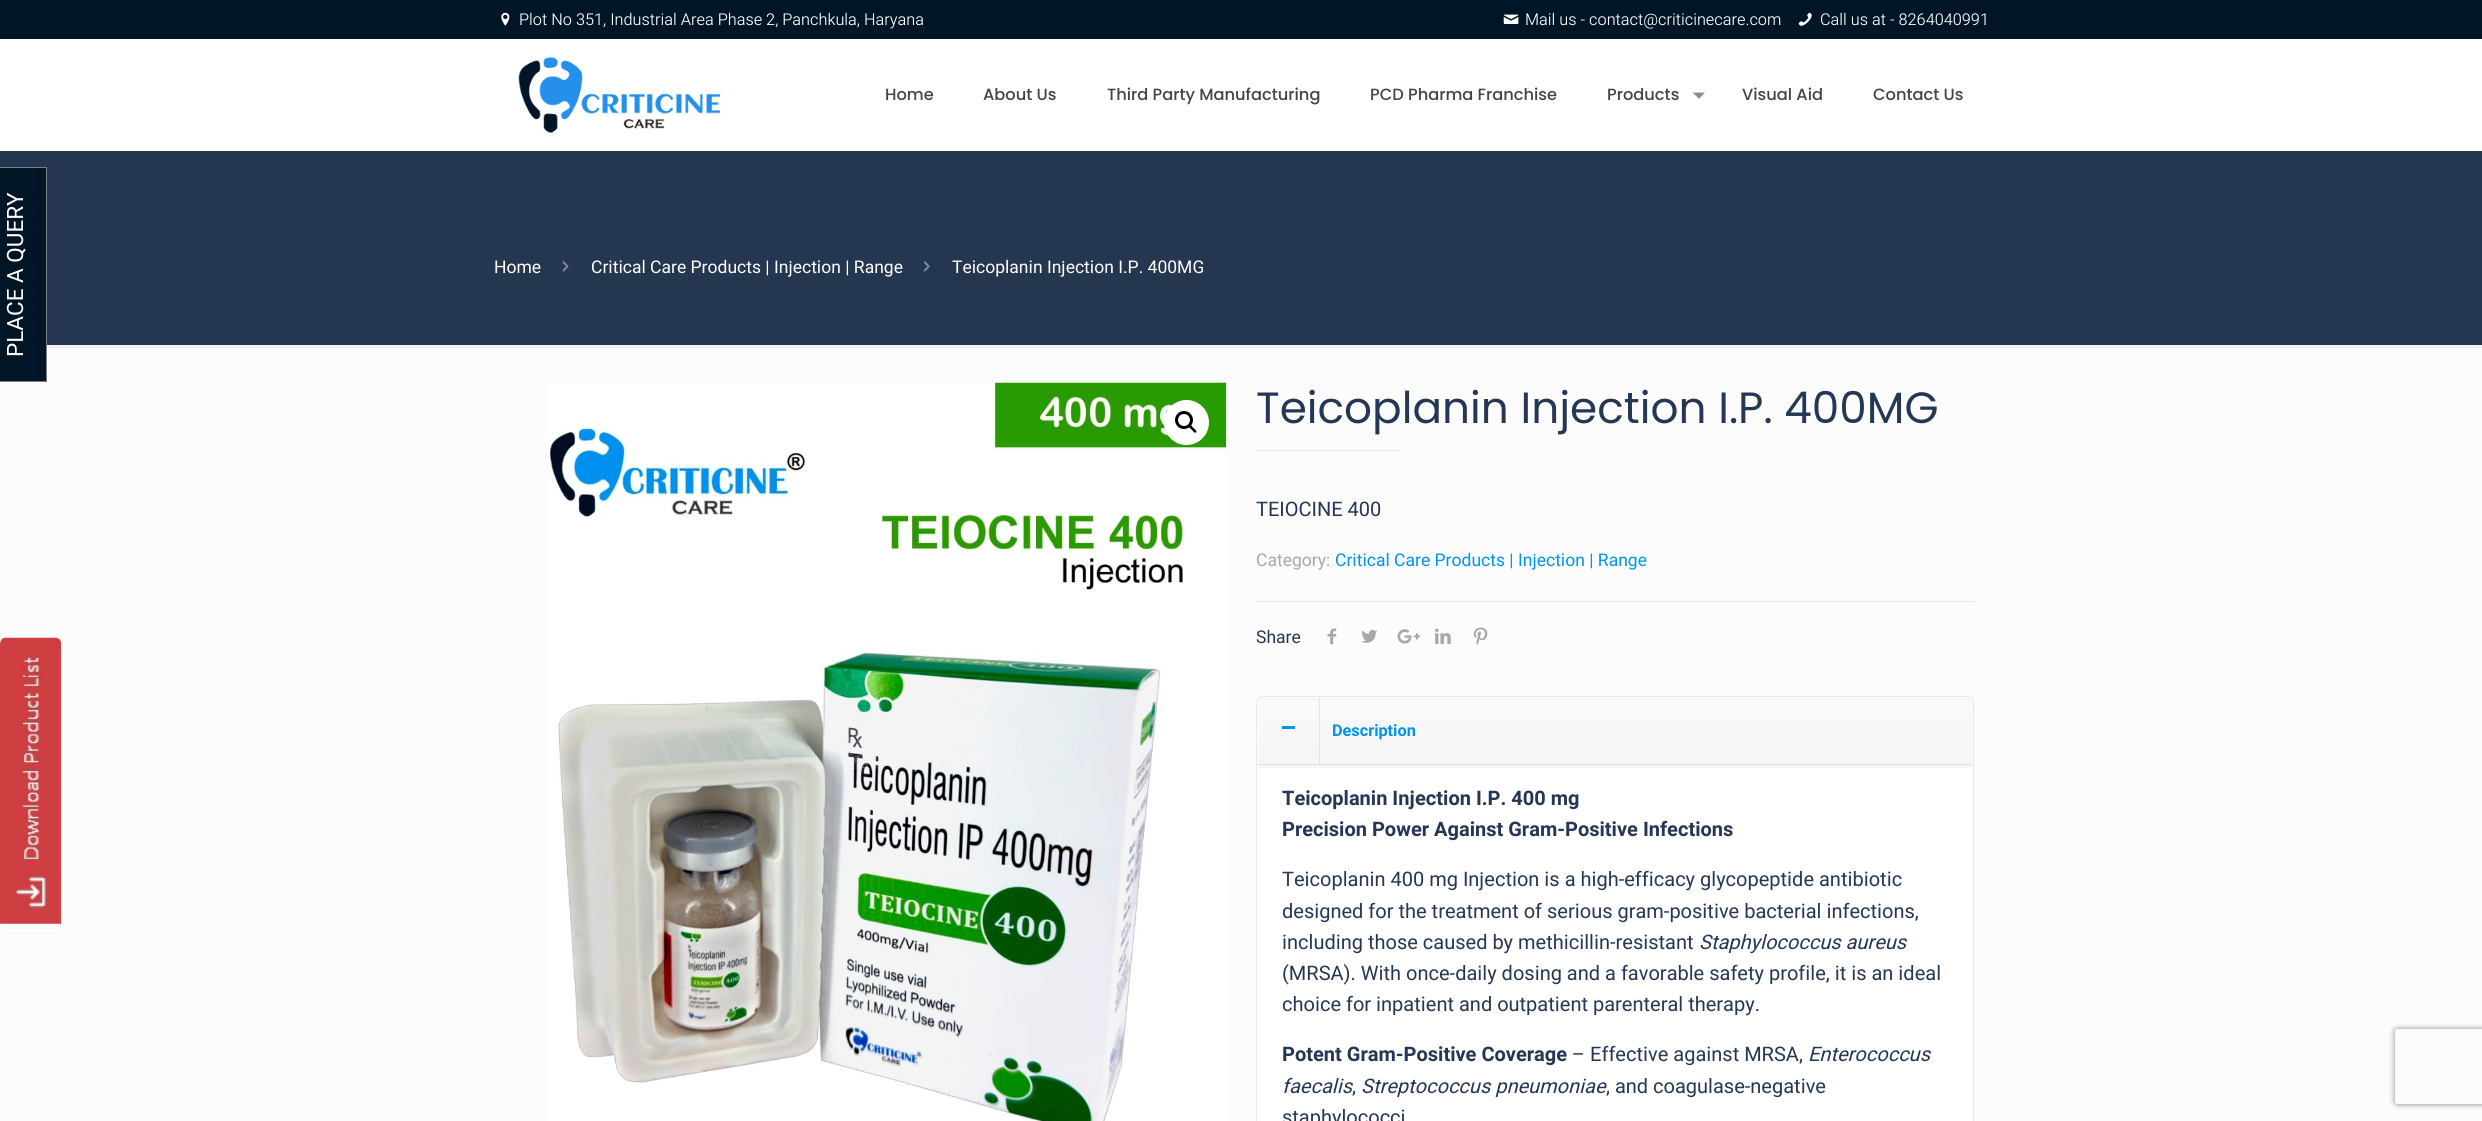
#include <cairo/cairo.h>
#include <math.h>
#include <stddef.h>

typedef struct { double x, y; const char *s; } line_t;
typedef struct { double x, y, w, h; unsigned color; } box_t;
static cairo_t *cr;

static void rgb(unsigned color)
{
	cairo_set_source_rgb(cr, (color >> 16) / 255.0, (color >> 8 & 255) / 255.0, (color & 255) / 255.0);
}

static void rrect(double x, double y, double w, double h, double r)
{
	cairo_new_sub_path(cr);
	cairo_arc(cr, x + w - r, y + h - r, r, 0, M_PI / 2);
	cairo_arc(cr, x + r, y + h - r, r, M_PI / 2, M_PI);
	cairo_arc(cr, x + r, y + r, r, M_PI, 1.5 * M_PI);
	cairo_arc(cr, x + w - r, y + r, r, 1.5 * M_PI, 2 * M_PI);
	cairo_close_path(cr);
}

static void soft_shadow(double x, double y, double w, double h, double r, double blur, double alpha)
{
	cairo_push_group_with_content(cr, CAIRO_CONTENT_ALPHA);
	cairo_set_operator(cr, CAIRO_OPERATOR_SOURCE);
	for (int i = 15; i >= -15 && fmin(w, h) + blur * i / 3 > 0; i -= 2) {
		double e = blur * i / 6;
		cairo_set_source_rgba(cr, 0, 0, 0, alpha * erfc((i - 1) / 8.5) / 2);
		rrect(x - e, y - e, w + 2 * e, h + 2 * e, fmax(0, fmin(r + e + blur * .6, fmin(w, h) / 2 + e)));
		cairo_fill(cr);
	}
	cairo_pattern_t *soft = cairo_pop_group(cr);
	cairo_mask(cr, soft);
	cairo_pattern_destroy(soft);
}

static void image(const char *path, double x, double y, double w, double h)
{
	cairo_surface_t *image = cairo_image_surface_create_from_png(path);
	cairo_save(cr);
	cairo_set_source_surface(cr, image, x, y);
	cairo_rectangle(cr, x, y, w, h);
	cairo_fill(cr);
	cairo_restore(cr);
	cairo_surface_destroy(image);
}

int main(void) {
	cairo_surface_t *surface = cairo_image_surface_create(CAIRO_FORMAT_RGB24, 2482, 1121);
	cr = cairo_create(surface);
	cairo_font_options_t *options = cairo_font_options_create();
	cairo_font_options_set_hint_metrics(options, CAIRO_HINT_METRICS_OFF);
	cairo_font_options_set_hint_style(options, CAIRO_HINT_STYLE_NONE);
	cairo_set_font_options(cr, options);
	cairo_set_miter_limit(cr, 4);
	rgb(0xfcfcfc);
	cairo_paint(cr);
	{
		static const box_t items[] = {
			{0, 151, 2482, 194, 0x253750},
			{0, 168, 46, 213, 0x001526},
			{0, 167, 47, 1, 0x7f7f7f},
			{46, 167, 1, 215, 0x7f7f7f},
			{0, 381, 47, 1, 0x7f7f7f},
			{0, 0, 2482, 39, 0x001526},
		};
		for (size_t i = 0; i < sizeof items / sizeof *items; i++) {
			rgb(items[i].color);
			cairo_rectangle(cr, items[i].x, items[i].y, items[i].w, items[i].h);
			cairo_fill(cr);
		}
	}
	image("img/1.png", 501, 12, 9, 14);
	image("img/2.png", 1503, 14, 16, 10);
	image("img/3.png", 1798, 12, 14, 14);
	rgb(0xffffff);
	cairo_rectangle(cr, 0, 39, 2482, 112);
	cairo_fill(cr);
	image("img/4.png", 518, 57, 202, 76);
	rgb(0x8f8f8f);
	cairo_new_path(cr);
	cairo_move_to(cr, 1692.5, 92.5);
	cairo_line_to(cr, 1705, 92.5);
	cairo_line_to(cr, 1699, 99);
	cairo_close_path(cr);
	cairo_fill(cr);
	image("img/5.png", 562, 261, 7, 11);
	image("img/6.png", 923, 261, 7, 11);
	rgb(0xf2f2f2);
	cairo_rectangle(cr, 47, 345, 2435, 3);
	cairo_fill(cr);
	image("img/7.png", 549, 382, 678, 739);
	rgb(0xffffff);
	cairo_arc(cr, 1186.5, 422.5, 22.5, 0, 2 * M_PI);
	cairo_fill(cr);
	cairo_arc(cr, 1184, 420, 7.5, 0, 2 * M_PI);
	rgb(0x000000);
	cairo_set_line_width(cr, 3);
	cairo_stroke(cr);
	cairo_new_path(cr);
	cairo_move_to(cr, 1189, 425);
	cairo_curve_to(cr, 1190.5, 424, 1192.5, 427, 1193.5, 428);
	cairo_curve_to(cr, 1194, 428.5, 1197.5, 431, 1196, 432.5);
	cairo_curve_to(cr, 1194.5, 433.5, 1192.5, 430.5, 1191.5, 429.5);
	cairo_curve_to(cr, 1191, 429, 1187.5, 426.5, 1189, 425);
	cairo_close_path(cr);
	cairo_fill(cr);
	rgb(0xe8e8e8);
	cairo_rectangle(cr, 1256, 450, 144, 1);
	cairo_fill(cr);
	cairo_rectangle(cr, 1256, 601, 718, 1);
	cairo_fill(cr);
	image("img/8.png", 1327, 628, 10, 17);
	image("img/9.png", 1361, 629, 17, 14);
	image("img/10.png", 1397, 629, 23, 15);
	image("img/11.png", 1435, 628, 16, 17);
	image("img/12.png", 1473, 627, 15, 18);
	rrect(1256.5, 696.5, 717, 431, 5.5);
	cairo_set_line_width(cr, 1);
	cairo_stroke(cr);
	image("img/13.png", 1258, 698, 714, 67);
	cairo_set_source_rgba(cr, 0, 0, 0, 0.08);
	cairo_rectangle(cr, 1258, 764, 715, 1);
	cairo_fill(cr);
	rgb(0x0095eb);
	cairo_rectangle(cr, 1282, 726, 13, 3);
	cairo_fill(cr);
	cairo_set_source_rgba(cr, 0, 0, 0, 0.08);
	cairo_rectangle(cr, 1319, 698, 1, 66);
	cairo_fill(cr);
	rgb(0xffffff);
	cairo_rectangle(cr, 1258, 765, 715, 356);
	cairo_fill(cr);
	rgb(0xf5f5f5);
	cairo_rectangle(cr, 1258, 765, 714, 3);
	cairo_fill(cr);
	rrect(0.5, 638.5, 60, 295, 5.5);
	rgb(0xf4f4f4);
	cairo_stroke(cr);
	image("img/14.png", 0, 637, 62, 287);
	cairo_save(cr);
	cairo_set_fill_rule(cr, CAIRO_FILL_RULE_EVEN_ODD);
	cairo_new_path(cr);
	cairo_move_to(cr, 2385, 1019);
	cairo_line_to(cr, 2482, 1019);
	cairo_line_to(cr, 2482, 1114);
	cairo_line_to(cr, 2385, 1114);
	cairo_close_path(cr);
	cairo_move_to(cr, 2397.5, 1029);
	cairo_line_to(cr, 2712.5, 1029);
	cairo_curve_to(cr, 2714, 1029, 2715, 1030, 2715, 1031.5);
	cairo_line_to(cr, 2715, 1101.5);
	cairo_curve_to(cr, 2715, 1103, 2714, 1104, 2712.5, 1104);
	cairo_line_to(cr, 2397.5, 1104);
	cairo_curve_to(cr, 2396, 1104, 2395, 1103, 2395, 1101.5);
	cairo_line_to(cr, 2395, 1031.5);
	cairo_curve_to(cr, 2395, 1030, 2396, 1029, 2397.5, 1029);
	cairo_close_path(cr);
	cairo_clip(cr);
	rgb(0x808080);
	soft_shadow(2395, 1029, 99, 75, 2.5, 3, 1);
	cairo_restore(cr);
	cairo_select_font_face(cr, "Heebo", CAIRO_FONT_SLANT_NORMAL, CAIRO_FONT_WEIGHT_NORMAL);
	cairo_set_font_size(cr, 22.5);
	rgb(0xffffff);
	cairo_save(cr);
	cairo_translate(cr, 23, 357);
	cairo_rotate(cr, -90 * M_PI / 180);
	cairo_move_to(cr, 0, 0);
	cairo_show_text(cr, "PLACE A QUERY");
	cairo_restore(cr);
	cairo_select_font_face(cr, "Heebo Light", CAIRO_FONT_SLANT_NORMAL, CAIRO_FONT_WEIGHT_NORMAL);
	cairo_set_font_size(cr, 16.25);
	{
		static const line_t items[] = {
			{519, 25, "Plot No 351, Industrial Area Phase 2, Panchkula, Haryana"},
			{1525, 25, "Mail us - contact@criticinecare.com"},
			{1820, 25, "Call us at - 8264040991"},
		};
		for (size_t i = 0; i < sizeof items / sizeof *items; i++) {
			cairo_move_to(cr, items[i].x, items[i].y);
			cairo_show_text(cr, items[i].s);
		}
	}
	cairo_select_font_face(cr, "Poppins Medium", CAIRO_FONT_SLANT_NORMAL, CAIRO_FONT_WEIGHT_NORMAL);
	rgb(0x444444);
	{
		static const line_t items[] = {
			{885, 100, "Home"},
			{983, 100, "About Us"},
			{1107, 100, "Third Party Manufacturing"},
			{1370, 100, "PCD Pharma Franchise"},
			{1607, 100, "Products"},
			{1742, 100, "Visual Aid"},
			{1873, 100, "Contact Us"},
		};
		for (size_t i = 0; i < sizeof items / sizeof *items; i++) {
			cairo_move_to(cr, items[i].x, items[i].y);
			cairo_show_text(cr, items[i].s);
		}
	}
	cairo_select_font_face(cr, "Heebo", CAIRO_FONT_SLANT_NORMAL, CAIRO_FONT_WEIGHT_NORMAL);
	cairo_set_font_size(cr, 17.5);
	rgb(0xffffff);
	{
		static const line_t items[] = {
			{494, 273, "Home"},
			{591, 273, "Critical Care Products | Injection | Range"},
			{952, 273, "Teicoplanin Injection I.P. 400MG"},
		};
		for (size_t i = 0; i < sizeof items / sizeof *items; i++) {
			cairo_move_to(cr, items[i].x, items[i].y);
			cairo_show_text(cr, items[i].s);
		}
	}
	cairo_select_font_face(cr, "Poppins", CAIRO_FONT_SLANT_NORMAL, CAIRO_FONT_WEIGHT_NORMAL);
	cairo_set_font_size(cr, 43.75);
	rgb(0x253755);
	cairo_move_to(cr, 1256, 423);
	cairo_show_text(cr, "Teicoplanin Injection I.P. 400MG");
	cairo_select_font_face(cr, "Heebo", CAIRO_FONT_SLANT_NORMAL, CAIRO_FONT_WEIGHT_NORMAL);
	cairo_set_font_size(cr, 20);
	cairo_move_to(cr, 1256, 516);
	cairo_show_text(cr, "TEIOCINE 400");
	cairo_set_font_size(cr, 17.5);
	rgb(0xa8a8a8);
	cairo_move_to(cr, 1256, 566);
	cairo_show_text(cr, "Category:");
	rgb(0x0095eb);
	cairo_move_to(cr, 1335, 566);
	cairo_show_text(cr, "Critical Care Products | Injection | Range");
	rgb(0x253755);
	cairo_move_to(cr, 1256, 643);
	cairo_show_text(cr, "Share");
	cairo_select_font_face(cr, "Heebo", CAIRO_FONT_SLANT_NORMAL, CAIRO_FONT_WEIGHT_BOLD);
	cairo_set_font_size(cr, 16.25);
	rgb(0x0095eb);
	cairo_move_to(cr, 1332, 736);
	cairo_show_text(cr, "Description");
	cairo_set_font_size(cr, 20);
	rgb(0x253755);
	cairo_move_to(cr, 1282, 805);
	cairo_show_text(cr, "Teicoplanin Injection I.P. 400 mg");
	cairo_move_to(cr, 1282, 836);
	cairo_show_text(cr, "Precision Power Against Gram-Positive Infections");
	cairo_select_font_face(cr, "Heebo", CAIRO_FONT_SLANT_NORMAL, CAIRO_FONT_WEIGHT_NORMAL);
	{
		static const line_t items[] = {
			{1282, 886, "Teicoplanin 400 mg Injection is a high-efficacy glycopeptide antibiotic"},
			{1282, 918, "designed for the treatment of serious gram-positive bacterial infections,"},
			{1282, 949, "including those caused by methicillin-resistant"},
		};
		for (size_t i = 0; i < sizeof items / sizeof *items; i++) {
			cairo_move_to(cr, items[i].x, items[i].y);
			cairo_show_text(cr, items[i].s);
		}
	}
	cairo_select_font_face(cr, "Heebo", CAIRO_FONT_SLANT_ITALIC, CAIRO_FONT_WEIGHT_NORMAL);
	cairo_move_to(cr, 1699, 949);
	cairo_show_text(cr, "Staphylococcus aureus");
	cairo_select_font_face(cr, "Heebo", CAIRO_FONT_SLANT_NORMAL, CAIRO_FONT_WEIGHT_NORMAL);
	cairo_move_to(cr, 1282, 980);
	cairo_show_text(cr, "(MRSA). With once-daily dosing and a favorable safety profile, it is an ideal");
	cairo_move_to(cr, 1282, 1011);
	cairo_show_text(cr, "choice for inpatient and outpatient parenteral therapy.");
	cairo_select_font_face(cr, "Heebo", CAIRO_FONT_SLANT_NORMAL, CAIRO_FONT_WEIGHT_BOLD);
	cairo_move_to(cr, 1282, 1061);
	cairo_show_text(cr, "Potent Gram-Positive Coverage");
	cairo_select_font_face(cr, "Heebo", CAIRO_FONT_SLANT_NORMAL, CAIRO_FONT_WEIGHT_NORMAL);
	cairo_move_to(cr, 1572, 1061);
	cairo_show_text(cr, "– Effective against MRSA,");
	cairo_select_font_face(cr, "Heebo", CAIRO_FONT_SLANT_ITALIC, CAIRO_FONT_WEIGHT_NORMAL);
	{
		static const line_t items[] = {
			{1808, 1061, "Enterococcus"},
			{1282, 1093, "faecalis"},
			{1361, 1093, "Streptococcus pneumoniae"},
		};
		for (size_t i = 0; i < sizeof items / sizeof *items; i++) {
			cairo_move_to(cr, items[i].x, items[i].y);
			cairo_show_text(cr, items[i].s);
		}
	}
	cairo_select_font_face(cr, "Heebo", CAIRO_FONT_SLANT_NORMAL, CAIRO_FONT_WEIGHT_NORMAL);
	{
		static const line_t items[] = {
			{1606, 1093, ", and coagulase-negative"},
			{1352, 1093, ","},
			{1282, 1124, "staphylococci"},
		};
		for (size_t i = 0; i < sizeof items / sizeof *items; i++) {
			cairo_move_to(cr, items[i].x, items[i].y);
			cairo_show_text(cr, items[i].s);
		}
	}
	cairo_surface_write_to_png(surface, "page.png");
	cairo_font_options_destroy(options);
	cairo_destroy(cr);
	cairo_surface_destroy(surface);
	return 0;
}
